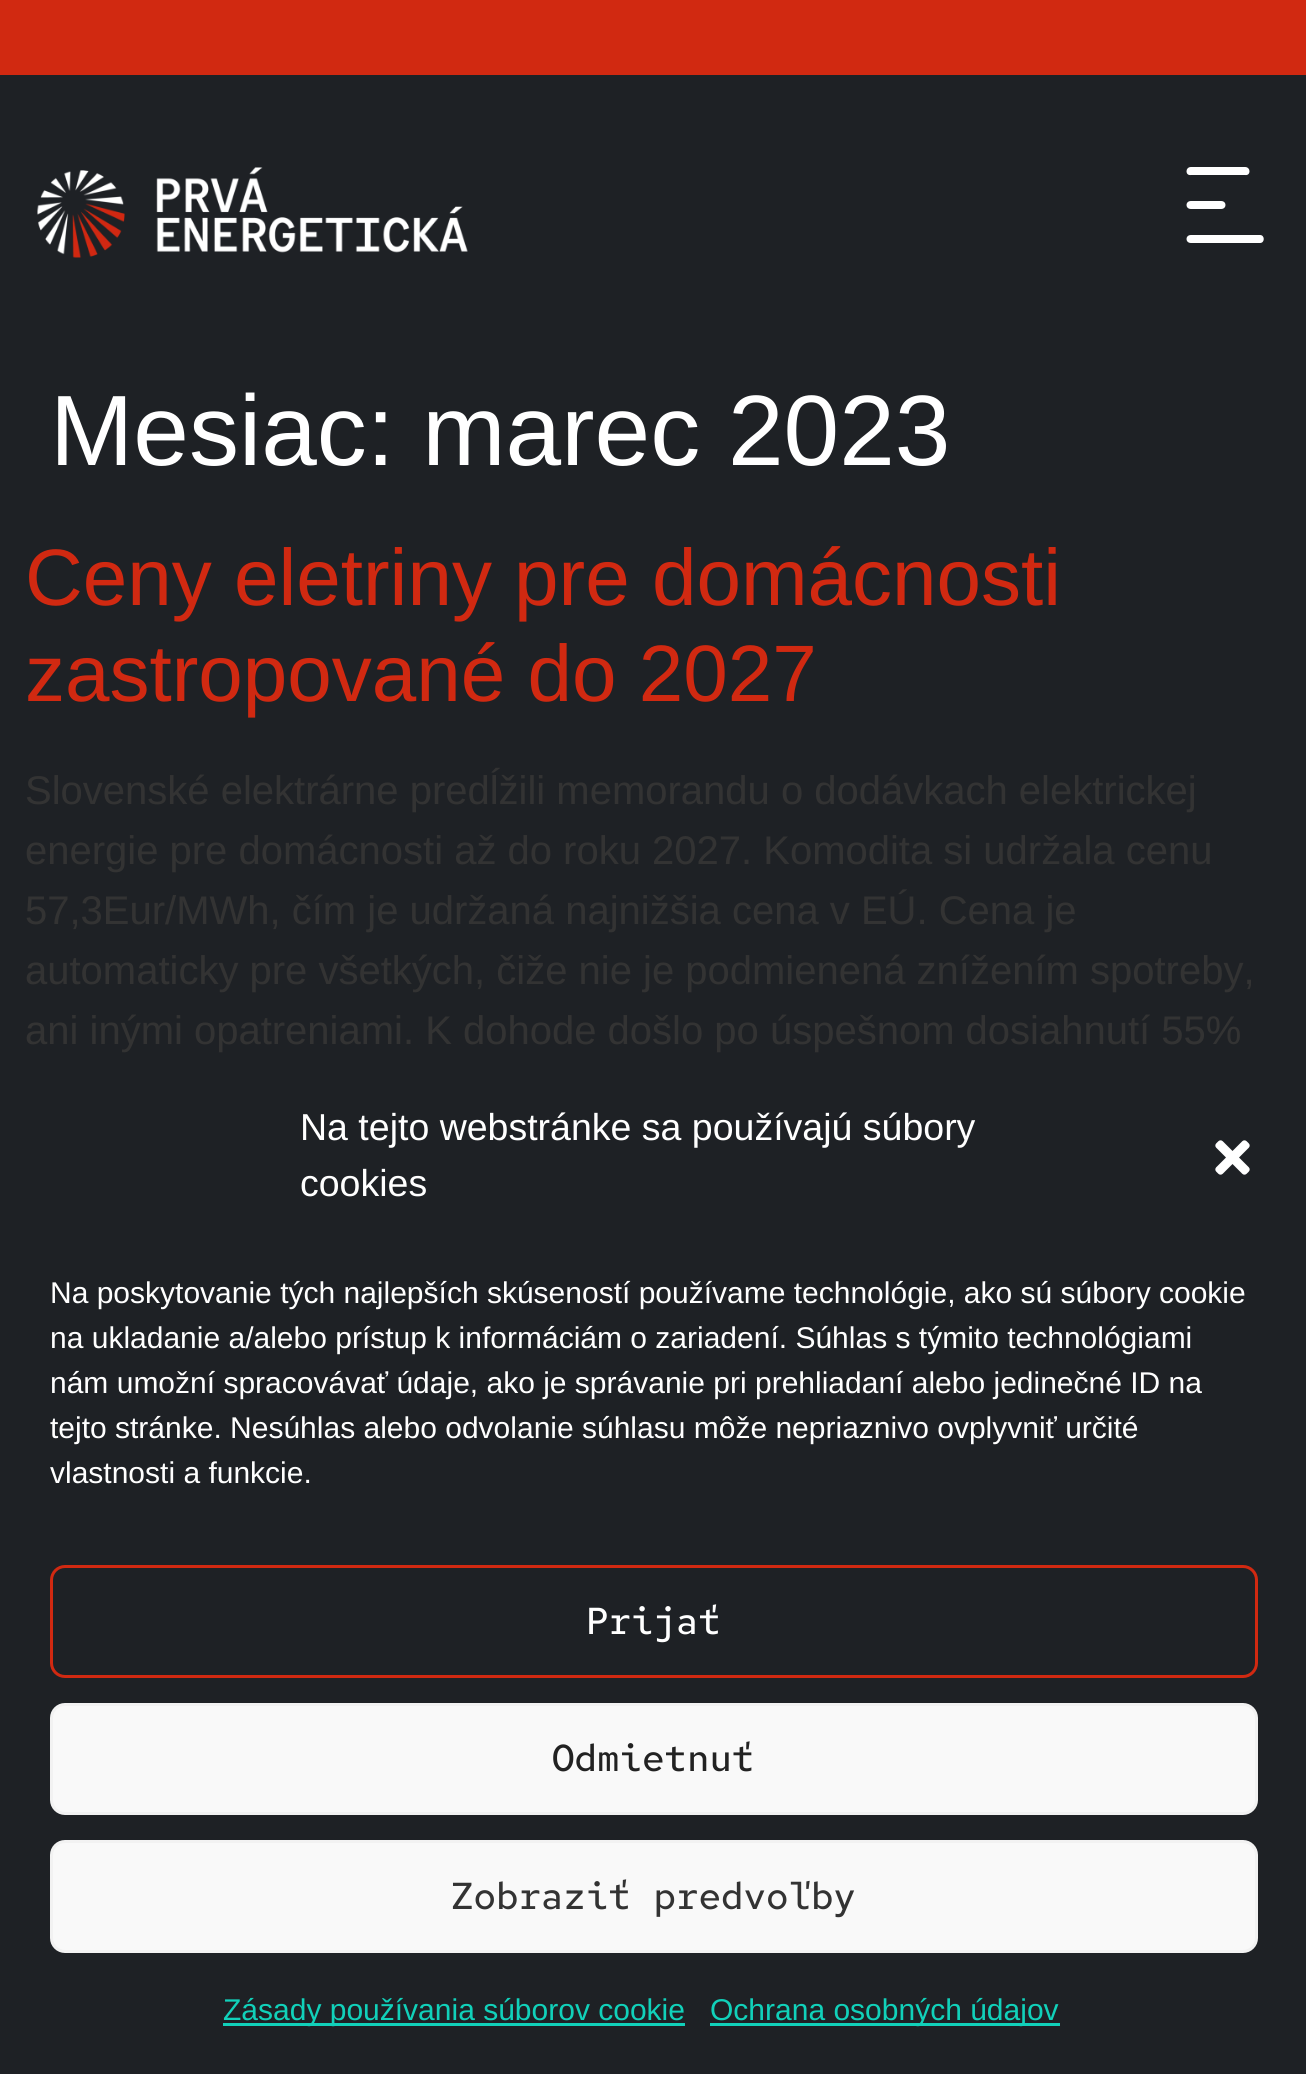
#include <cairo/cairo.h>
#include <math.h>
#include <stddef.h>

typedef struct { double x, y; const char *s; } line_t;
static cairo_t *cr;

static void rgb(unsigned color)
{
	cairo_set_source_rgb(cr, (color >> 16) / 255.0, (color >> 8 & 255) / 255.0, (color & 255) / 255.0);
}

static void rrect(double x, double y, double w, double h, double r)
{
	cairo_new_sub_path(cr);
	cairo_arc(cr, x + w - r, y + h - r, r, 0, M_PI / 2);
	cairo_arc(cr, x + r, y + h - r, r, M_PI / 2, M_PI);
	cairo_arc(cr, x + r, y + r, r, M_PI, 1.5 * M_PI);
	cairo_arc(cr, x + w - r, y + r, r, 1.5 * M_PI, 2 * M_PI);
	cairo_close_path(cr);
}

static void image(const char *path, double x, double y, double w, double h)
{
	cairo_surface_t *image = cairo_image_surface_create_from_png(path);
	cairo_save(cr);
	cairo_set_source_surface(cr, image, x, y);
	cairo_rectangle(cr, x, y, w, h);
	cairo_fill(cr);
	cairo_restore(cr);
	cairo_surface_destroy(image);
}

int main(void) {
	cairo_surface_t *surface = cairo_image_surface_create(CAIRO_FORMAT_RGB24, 1306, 2074);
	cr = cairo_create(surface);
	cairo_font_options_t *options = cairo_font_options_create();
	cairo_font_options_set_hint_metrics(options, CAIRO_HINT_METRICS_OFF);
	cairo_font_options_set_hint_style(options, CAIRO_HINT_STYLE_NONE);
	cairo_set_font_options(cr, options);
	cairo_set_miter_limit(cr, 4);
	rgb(0x1e2125);
	cairo_paint(cr);
	rgb(0xd12911);
	cairo_rectangle(cr, 0, 0, 1306, 75);
	cairo_fill(cr);
	image("img/1.png", 37, 167, 431, 91);
	rgb(0xffffff);
	cairo_new_path(cr);
	cairo_move_to(cr, 1245, 167);
	cairo_line_to(cr, 1191, 167);
	cairo_curve_to(cr, 1185, 167, 1185, 176, 1191, 175);
	cairo_line_to(cr, 1245, 175);
	cairo_curve_to(cr, 1251, 176, 1251, 167, 1245, 167);
	cairo_close_path(cr);
	cairo_move_to(cr, 1191, 201);
	cairo_curve_to(cr, 1185, 201, 1185, 209, 1191, 209);
	cairo_line_to(cr, 1221, 209);
	cairo_curve_to(cr, 1227, 209, 1227, 201, 1221, 201);
	cairo_close_path(cr);
	cairo_move_to(cr, 1191, 235);
	cairo_curve_to(cr, 1185, 235, 1185, 243, 1191, 243);
	cairo_line_to(cr, 1260, 243);
	cairo_curve_to(cr, 1265, 243, 1265, 235, 1260, 235);
	cairo_close_path(cr);
	cairo_fill(cr);
	image("img/2.png", 1215, 1140, 35, 35);
	rrect(51.5, 1566.5, 1205, 110, 13.5);
	rgb(0xd12911);
	cairo_set_line_width(cr, 3);
	cairo_stroke(cr);
	rgb(0xf9f9f9);
	rrect(51.5, 1704.5, 1205, 109, 13.5);
	cairo_fill_preserve(cr);
	rgb(0xf2f2f2);
	cairo_stroke(cr);
	rgb(0xf9f9f9);
	rrect(51.5, 1841.5, 1205, 110, 13.5);
	cairo_fill_preserve(cr);
	rgb(0xf2f2f2);
	cairo_stroke(cr);
	rgb(0x11d1ba);
	cairo_rectangle(cr, 223, 2023, 462, 3);
	cairo_fill(cr);
	cairo_rectangle(cr, 710, 2023, 350, 3);
	cairo_fill(cr);
	cairo_select_font_face(cr, "Liberation Sans", CAIRO_FONT_SLANT_NORMAL, CAIRO_FONT_WEIGHT_NORMAL);
	cairo_set_font_size(cr, 100);
	rgb(0xffffff);
	cairo_move_to(cr, 50, 465);
	cairo_show_text(cr, "Mesiac: marec 2023");
	cairo_set_font_size(cr, 80);
	rgb(0xd12911);
	cairo_move_to(cr, 25, 605);
	cairo_show_text(cr, "Ceny eletriny pre domácnosti");
	cairo_move_to(cr, 25, 701);
	cairo_show_text(cr, "zastropované do 2027");
	cairo_set_font_size(cr, 40);
	rgb(0x333333);
	{
		static const line_t items[] = {
			{25, 804, "Slovenské elektrárne predĺžili memorandu o dodávkach elektrickej"},
			{25, 864, "energie pre domácnosti až do roku 2027. Komodita si udržala cenu"},
			{25, 924, "57,3Eur/MWh, čím je udržaná najnižšia cena v EÚ. Cena je"},
			{25, 984, "automaticky pre všetkých, čiže nie je podmienená znížením spotreby,"},
			{25, 1044, "ani inými opatreniami. K dohode došlo po úspešnom dosiahnutí 55%"},
		};
		for (size_t i = 0; i < sizeof items / sizeof *items; i++) {
			cairo_move_to(cr, items[i].x, items[i].y);
			cairo_show_text(cr, items[i].s);
		}
	}
	cairo_set_font_size(cr, 37.5);
	rgb(0xffffff);
	cairo_move_to(cr, 300, 1140);
	cairo_show_text(cr, "Na tejto webstránke sa používajú súbory");
	cairo_move_to(cr, 300, 1196);
	cairo_show_text(cr, "cookies");
	cairo_set_font_size(cr, 30);
	{
		static const line_t items[] = {
			{50, 1303, "Na poskytovanie tých najlepších skúseností používame technológie, ako sú súbory cookie"},
			{50, 1348, "na ukladanie a/alebo prístup k informáciám o zariadení. Súhlas s týmito technológiami"},
			{50, 1393, "nám umožní spracovávať údaje, ako je správanie pri prehliadaní alebo jedinečné ID na"},
			{50, 1438, "tejto stránke. Nesúhlas alebo odvolanie súhlasu môže nepriaznivo ovplyvniť určité"},
			{50, 1483, "vlastnosti a funkcie."},
		};
		for (size_t i = 0; i < sizeof items / sizeof *items; i++) {
			cairo_move_to(cr, items[i].x, items[i].y);
			cairo_show_text(cr, items[i].s);
		}
	}
	cairo_select_font_face(cr, "Red Hat Mono Medium", CAIRO_FONT_SLANT_NORMAL, CAIRO_FONT_WEIGHT_NORMAL);
	cairo_set_font_size(cr, 37.5);
	cairo_move_to(cr, 586, 1634);
	cairo_show_text(cr, "Prijať");
	rgb(0x222222);
	cairo_move_to(cr, 552, 1771);
	cairo_show_text(cr, "Odmietnuť");
	rgb(0x333333);
	cairo_move_to(cr, 451, 1909);
	cairo_show_text(cr, "Zobraziť predvoľby");
	cairo_select_font_face(cr, "Liberation Sans", CAIRO_FONT_SLANT_NORMAL, CAIRO_FONT_WEIGHT_NORMAL);
	cairo_set_font_size(cr, 30);
	rgb(0x11d1ba);
	cairo_move_to(cr, 223, 2020);
	cairo_show_text(cr, "Zásady používania súborov cookie");
	cairo_move_to(cr, 710, 2020);
	cairo_show_text(cr, "Ochrana osobných údajov");
	cairo_surface_write_to_png(surface, "page.png");
	cairo_font_options_destroy(options);
	cairo_destroy(cr);
	cairo_surface_destroy(surface);
	return 0;
}
